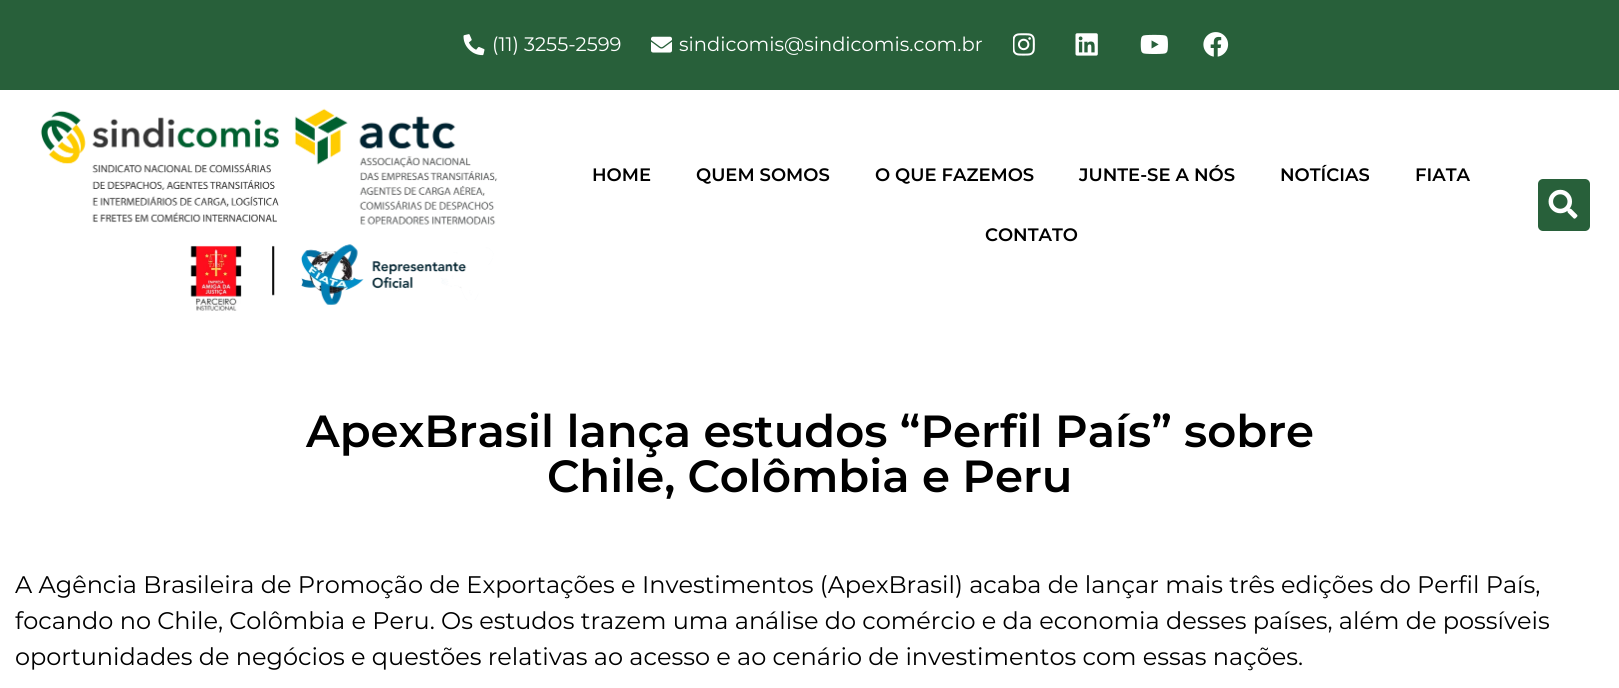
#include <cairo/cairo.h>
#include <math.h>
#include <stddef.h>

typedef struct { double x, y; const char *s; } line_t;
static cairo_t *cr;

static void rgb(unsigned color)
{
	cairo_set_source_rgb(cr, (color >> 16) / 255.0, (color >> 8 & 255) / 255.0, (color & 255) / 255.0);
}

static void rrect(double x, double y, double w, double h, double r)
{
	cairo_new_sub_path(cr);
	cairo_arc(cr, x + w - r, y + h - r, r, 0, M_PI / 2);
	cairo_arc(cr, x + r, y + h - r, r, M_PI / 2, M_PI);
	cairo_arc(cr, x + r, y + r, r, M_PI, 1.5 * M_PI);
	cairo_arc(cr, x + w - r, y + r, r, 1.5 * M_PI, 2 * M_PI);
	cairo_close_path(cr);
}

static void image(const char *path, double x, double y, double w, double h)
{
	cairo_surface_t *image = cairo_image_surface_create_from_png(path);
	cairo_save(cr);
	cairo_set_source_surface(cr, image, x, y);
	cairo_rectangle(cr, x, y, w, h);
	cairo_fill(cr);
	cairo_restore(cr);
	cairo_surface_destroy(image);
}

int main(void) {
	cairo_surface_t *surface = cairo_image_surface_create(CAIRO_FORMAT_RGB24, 1619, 688);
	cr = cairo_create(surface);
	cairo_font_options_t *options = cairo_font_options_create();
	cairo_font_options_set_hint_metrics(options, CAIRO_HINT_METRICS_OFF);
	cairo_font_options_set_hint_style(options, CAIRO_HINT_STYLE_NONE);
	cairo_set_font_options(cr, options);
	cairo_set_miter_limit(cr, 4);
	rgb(0xffffff);
	cairo_paint(cr);
	rgb(0x28603a);
	cairo_rectangle(cr, 0, 0, 1619, 90);
	cairo_fill(cr);
	image("img/1.png", 463, 34, 22, 22);
	image("img/2.png", 651, 36, 21, 17);
	image("img/3.png", 1013, 33, 22, 23);
	image("img/4.png", 1075, 33, 23, 23);
	image("img/5.png", 1140, 34, 28, 20);
	image("img/6.png", 1203, 32, 26, 25);
	image("img/7.png", 40, 108, 458, 203);
	rrect(1538, 179, 52, 52, 5);
	cairo_fill(cr);
	image("img/8.png", 1548, 189, 30, 30);
	cairo_select_font_face(cr, "Montserrat", CAIRO_FONT_SLANT_NORMAL, CAIRO_FONT_WEIGHT_NORMAL);
	cairo_set_font_size(cr, 19.5);
	rgb(0xffffff);
	cairo_move_to(cr, 492, 51);
	cairo_show_text(cr, "(11) 3255-2599");
	cairo_move_to(cr, 679, 51);
	cairo_show_text(cr, "sindicomis@sindicomis.com.br");
	cairo_select_font_face(cr, "Montserrat SemiBold", CAIRO_FONT_SLANT_NORMAL, CAIRO_FONT_WEIGHT_NORMAL);
	cairo_set_font_size(cr, 18);
	rgb(0x000000);
	{
		static const line_t items[] = {
			{592, 181, "HOME"},
			{696, 181, "QUEM SOMOS"},
			{875, 181, "O QUE FAZEMOS"},
			{1079, 181, "JUNTE-SE A NÓS"},
			{1280, 181, "NOTÍCIAS"},
			{1415, 181, "FIATA"},
			{985, 241, "CONTATO"},
		};
		for (size_t i = 0; i < sizeof items / sizeof *items; i++) {
			cairo_move_to(cr, items[i].x, items[i].y);
			cairo_show_text(cr, items[i].s);
		}
	}
	cairo_set_font_size(cr, 45);
	cairo_move_to(cr, 306, 447);
	cairo_show_text(cr, "ApexBrasil lança estudos “Perfil País” sobre");
	cairo_move_to(cr, 547, 492);
	cairo_show_text(cr, "Chile, Colômbia e Peru");
	cairo_select_font_face(cr, "Montserrat", CAIRO_FONT_SLANT_NORMAL, CAIRO_FONT_WEIGHT_NORMAL);
	cairo_set_font_size(cr, 24);
	{
		static const line_t items[] = {
			{15, 593, "A Agência Brasileira de Promoção de Exportações e Investimentos (ApexBrasil) acaba de lançar mais três edições do Perfil País,"},
			{15, 629, "focando no Chile, Colômbia e Peru. Os estudos trazem uma análise do comércio e da economia desses países, além de possíveis"},
			{15, 665, "oportunidades de negócios e questões relativas ao acesso e ao cenário de investimentos com essas nações."},
		};
		for (size_t i = 0; i < sizeof items / sizeof *items; i++) {
			cairo_move_to(cr, items[i].x, items[i].y);
			cairo_show_text(cr, items[i].s);
		}
	}
	cairo_surface_write_to_png(surface, "page.png");
	cairo_font_options_destroy(options);
	cairo_destroy(cr);
	cairo_surface_destroy(surface);
	return 0;
}
